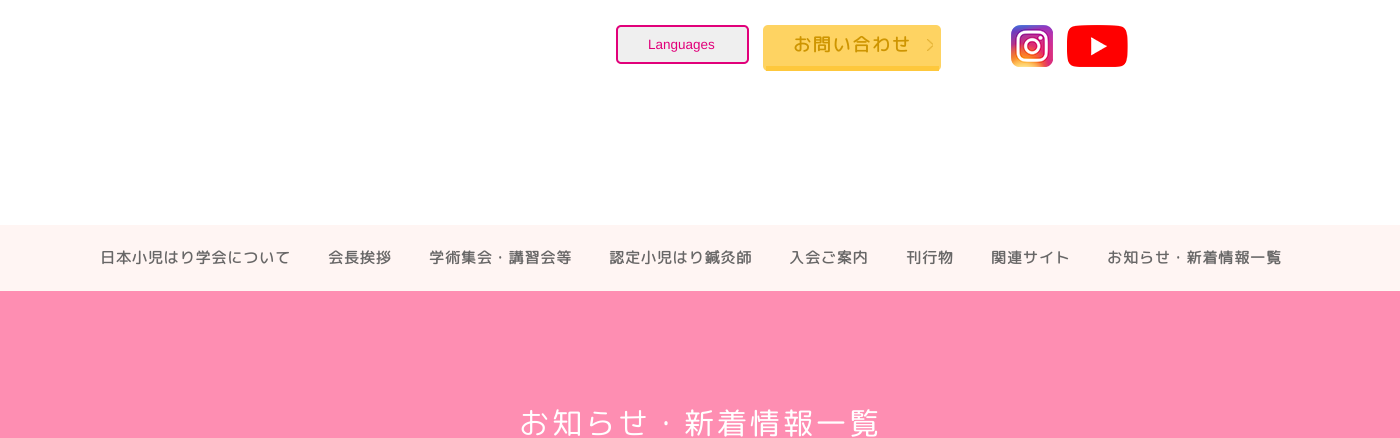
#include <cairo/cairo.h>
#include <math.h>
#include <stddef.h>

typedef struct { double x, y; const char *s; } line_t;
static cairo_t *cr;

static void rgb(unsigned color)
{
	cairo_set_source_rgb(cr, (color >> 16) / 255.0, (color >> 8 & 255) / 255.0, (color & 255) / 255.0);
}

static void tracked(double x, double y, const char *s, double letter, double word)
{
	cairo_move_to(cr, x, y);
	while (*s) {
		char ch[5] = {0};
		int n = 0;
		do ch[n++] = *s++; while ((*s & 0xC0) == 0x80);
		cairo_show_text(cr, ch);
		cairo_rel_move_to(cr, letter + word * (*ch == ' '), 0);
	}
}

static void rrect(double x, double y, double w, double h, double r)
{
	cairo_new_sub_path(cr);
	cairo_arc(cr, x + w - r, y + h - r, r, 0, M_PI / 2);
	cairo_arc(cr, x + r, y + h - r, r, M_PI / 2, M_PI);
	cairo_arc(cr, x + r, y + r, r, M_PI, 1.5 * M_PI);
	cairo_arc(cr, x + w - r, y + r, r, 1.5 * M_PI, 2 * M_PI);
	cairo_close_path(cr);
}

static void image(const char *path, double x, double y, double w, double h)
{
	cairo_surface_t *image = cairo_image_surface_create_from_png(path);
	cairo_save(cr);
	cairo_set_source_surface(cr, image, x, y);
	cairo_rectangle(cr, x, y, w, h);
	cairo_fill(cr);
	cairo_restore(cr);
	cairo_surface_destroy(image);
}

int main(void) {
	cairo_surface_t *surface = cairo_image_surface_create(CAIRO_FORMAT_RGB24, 1400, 438);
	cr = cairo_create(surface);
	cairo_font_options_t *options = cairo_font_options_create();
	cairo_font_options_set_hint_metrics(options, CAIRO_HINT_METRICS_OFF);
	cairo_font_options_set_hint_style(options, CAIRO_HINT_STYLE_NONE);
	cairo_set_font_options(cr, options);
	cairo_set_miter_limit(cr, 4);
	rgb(0xffffff);
	cairo_paint(cr);
	rgb(0xefefef);
	rrect(617, 26, 131, 37, 4);
	cairo_fill_preserve(cr);
	rgb(0xe1007a);
	cairo_stroke(cr);
	rgb(0xfed362);
	rrect(763, 25, 178, 46, 5);
	cairo_fill(cr);
	rgb(0xfec83c);
	cairo_rectangle(cr, 766, 66, 173, 5);
	cairo_fill(cr);
	image("img/1.png", 927, 39, 6, 12);
	image("img/2.png", 1011, 25, 42, 42);
	image("img/3.png", 1067, 25, 61, 42);
	rgb(0xfff5f3);
	cairo_rectangle(cr, 0, 225, 1400, 66);
	cairo_fill(cr);
	rgb(0xfe8eb2);
	cairo_rectangle(cr, 0, 291, 1400, 147);
	cairo_fill(cr);
	cairo_select_font_face(cr, "Liberation Sans", CAIRO_FONT_SLANT_NORMAL, CAIRO_FONT_WEIGHT_NORMAL);
	cairo_set_font_size(cr, 13.5);
	rgb(0xe1007a);
	cairo_move_to(cr, 648, 49);
	cairo_show_text(cr, "Languages");
	cairo_select_font_face(cr, "Rounded Mplus 1c", CAIRO_FONT_SLANT_NORMAL, CAIRO_FONT_WEIGHT_BOLD);
	cairo_set_font_size(cr, 18);
	rgb(0xce9501);
	tracked(793, 51, "お問い合わせ", 1.75, 0);
	cairo_set_font_size(cr, 15);
	rgb(0x686767);
	{
		static const line_t items[] = {
			{100, 263, "日本小児はり学会について"},
			{328, 263, "会長挨拶"},
			{429, 263, "学術集会・講習会等"},
			{609, 263, "認定小児はり鍼灸師"},
			{789, 263, "入会ご案内"},
			{906, 263, "刊行物"},
			{991, 263, "関連サイト"},
			{1107, 263, "お知らせ・新着情報一覧"},
		};
		for (size_t i = 0; i < sizeof items / sizeof *items; i++) {
			tracked(items[i].x, items[i].y, items[i].s, 0.9, 0);
		}
	}
	cairo_select_font_face(cr, "Rounded Mplus 1c", CAIRO_FONT_SLANT_NORMAL, CAIRO_FONT_WEIGHT_NORMAL);
	cairo_set_font_size(cr, 30);
	rgb(0xffffff);
	tracked(519, 434, "お知らせ・新着情報一覧", 3, 0);
	cairo_surface_write_to_png(surface, "page.png");
	cairo_font_options_destroy(options);
	cairo_destroy(cr);
	cairo_surface_destroy(surface);
	return 0;
}
